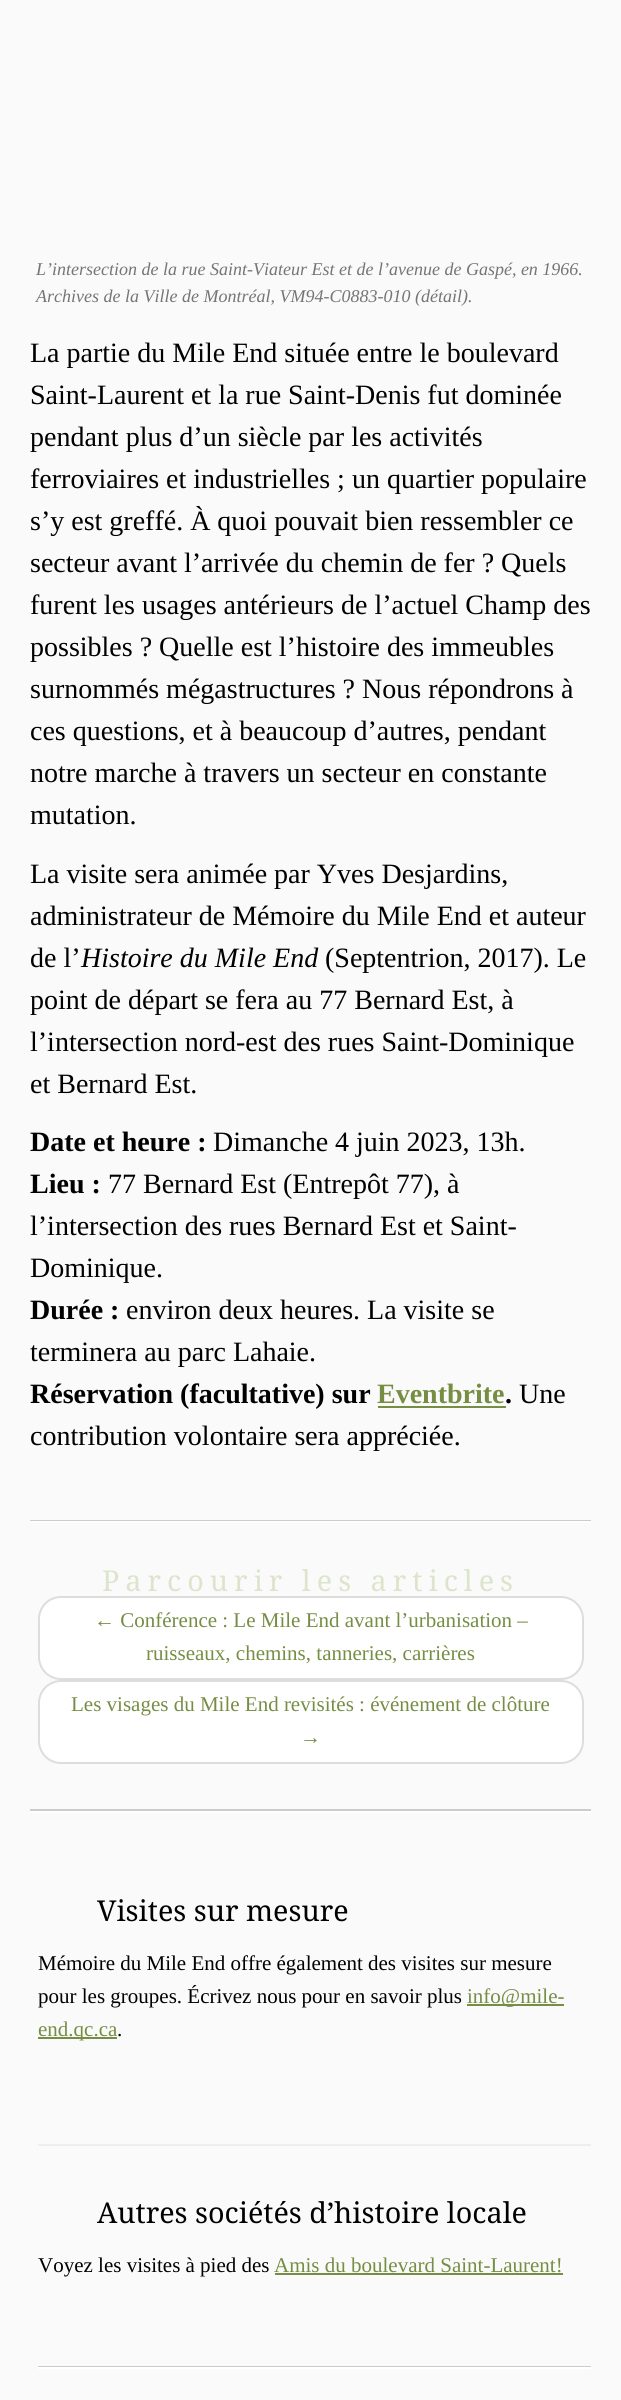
#include <cairo/cairo.h>
#include <math.h>
#include <stddef.h>

typedef struct { double x, y; const char *s; } line_t;
typedef struct { double x, y, w, h; unsigned color; } box_t;
static cairo_t *cr;

static void rgb(unsigned color)
{
	cairo_set_source_rgb(cr, (color >> 16) / 255.0, (color >> 8 & 255) / 255.0, (color & 255) / 255.0);
}

static void tracked(double x, double y, const char *s, double letter, double word)
{
	cairo_move_to(cr, x, y);
	while (*s) {
		char ch[5] = {0};
		int n = 0;
		do ch[n++] = *s++; while ((*s & 0xC0) == 0x80);
		cairo_show_text(cr, ch);
		cairo_rel_move_to(cr, letter + word * (*ch == ' '), 0);
	}
}

static void rrect(double x, double y, double w, double h, double r)
{
	cairo_new_sub_path(cr);
	cairo_arc(cr, x + w - r, y + h - r, r, 0, M_PI / 2);
	cairo_arc(cr, x + r, y + h - r, r, M_PI / 2, M_PI);
	cairo_arc(cr, x + r, y + r, r, M_PI, 1.5 * M_PI);
	cairo_arc(cr, x + w - r, y + r, r, 1.5 * M_PI, 2 * M_PI);
	cairo_close_path(cr);
}

int main(void) {
	cairo_surface_t *surface = cairo_image_surface_create(CAIRO_FORMAT_RGB24, 621, 2400);
	cr = cairo_create(surface);
	cairo_font_options_t *options = cairo_font_options_create();
	cairo_font_options_set_hint_metrics(options, CAIRO_HINT_METRICS_OFF);
	cairo_font_options_set_hint_style(options, CAIRO_HINT_STYLE_NONE);
	cairo_set_font_options(cr, options);
	cairo_set_miter_limit(cr, 4);
	rgb(0xfafafa);
	cairo_paint(cr);
	{
		static const box_t items[] = {
			{378, 1406, 128, 2, 0x768d44},
			{30, 1520, 561, 1, 0xcccccc},
			{30, 1521, 561, 2, 0xffffff},
		};
		for (size_t i = 0; i < sizeof items / sizeof *items; i++) {
			rgb(items[i].color);
			cairo_rectangle(cr, items[i].x, items[i].y, items[i].w, items[i].h);
			cairo_fill(cr);
		}
	}
	rrect(39, 1597, 544, 82, 22);
	cairo_fill_preserve(cr);
	rgb(0xdddddd);
	cairo_stroke(cr);
	rgb(0xffffff);
	rrect(39, 1681, 544, 82, 22);
	cairo_fill_preserve(cr);
	rgb(0xdddddd);
	cairo_stroke(cr);
	{
		static const box_t items[] = {
			{30, 1809, 561, 2, 0xcccccc},
			{30, 1811, 561, 2, 0xffffff},
			{38, 2144, 553, 2, 0xeeeeee},
			{467, 2004, 97, 2, 0x768d44},
			{38, 2037, 79, 2, 0x768d44},
			{275, 2273, 288, 2, 0x768d44},
			{38, 2366, 553, 1, 0xcccccc},
			{38, 2367, 553, 2, 0xffffff},
		};
		for (size_t i = 0; i < sizeof items / sizeof *items; i++) {
			rgb(items[i].color);
			cairo_rectangle(cr, items[i].x, items[i].y, items[i].w, items[i].h);
			cairo_fill(cr);
		}
	}
	cairo_select_font_face(cr, "Liberation Serif", CAIRO_FONT_SLANT_ITALIC, CAIRO_FONT_WEIGHT_NORMAL);
	cairo_set_font_size(cr, 18);
	rgb(0x757575);
	cairo_move_to(cr, 36, 275);
	cairo_show_text(cr, "L’intersection de la rue Saint-Viateur Est et de l’avenue de Gaspé, en 1966.");
	cairo_move_to(cr, 36, 302);
	cairo_show_text(cr, "Archives de la Ville de Montréal, VM94-C0883-010 (détail).");
	cairo_select_font_face(cr, "Liberation Serif", CAIRO_FONT_SLANT_NORMAL, CAIRO_FONT_WEIGHT_NORMAL);
	cairo_set_font_size(cr, 28);
	rgb(0x000000);
	{
		static const line_t items[] = {
			{30, 362, "La partie du Mile End située entre le boulevard"},
			{30, 404, "Saint-Laurent et la rue Saint-Denis fut dominée"},
			{30, 446, "pendant plus d’un siècle par les activités"},
			{30, 488, "ferroviaires et industrielles ; un quartier populaire"},
			{30, 530, "s’y est greffé. À quoi pouvait bien ressembler ce"},
			{30, 572, "secteur avant l’arrivée du chemin de fer ? Quels"},
			{30, 614, "furent les usages antérieurs de l’actuel Champ des"},
			{30, 656, "possibles ? Quelle est l’histoire des immeubles"},
			{30, 698, "surnommés mégastructures ? Nous répondrons à"},
			{30, 740, "ces questions, et à beaucoup d’autres, pendant"},
			{30, 782, "notre marche à travers un secteur en constante"},
			{30, 824, "mutation."},
			{30, 883, "La visite sera animée par Yves Desjardins,"},
			{30, 925, "administrateur de Mémoire du Mile End et auteur"},
			{30, 967, "de l’"},
		};
		for (size_t i = 0; i < sizeof items / sizeof *items; i++) {
			cairo_move_to(cr, items[i].x, items[i].y);
			cairo_show_text(cr, items[i].s);
		}
	}
	cairo_select_font_face(cr, "Liberation Serif", CAIRO_FONT_SLANT_ITALIC, CAIRO_FONT_WEIGHT_NORMAL);
	cairo_move_to(cr, 81, 967);
	cairo_show_text(cr, "Histoire du Mile End");
	cairo_select_font_face(cr, "Liberation Serif", CAIRO_FONT_SLANT_NORMAL, CAIRO_FONT_WEIGHT_NORMAL);
	{
		static const line_t items[] = {
			{325, 967, "(Septentrion, 2017). Le"},
			{30, 1009, "point de départ se fera au 77 Bernard Est, à"},
			{30, 1051, "l’intersection nord-est des rues Saint-Dominique"},
			{30, 1093, "et Bernard Est."},
		};
		for (size_t i = 0; i < sizeof items / sizeof *items; i++) {
			cairo_move_to(cr, items[i].x, items[i].y);
			cairo_show_text(cr, items[i].s);
		}
	}
	cairo_select_font_face(cr, "Liberation Serif", CAIRO_FONT_SLANT_NORMAL, CAIRO_FONT_WEIGHT_BOLD);
	cairo_move_to(cr, 30, 1151);
	cairo_show_text(cr, "Date et heure :");
	cairo_select_font_face(cr, "Liberation Serif", CAIRO_FONT_SLANT_NORMAL, CAIRO_FONT_WEIGHT_NORMAL);
	cairo_move_to(cr, 213, 1151);
	cairo_show_text(cr, "Dimanche 4 juin 2023, 13h.");
	cairo_select_font_face(cr, "Liberation Serif", CAIRO_FONT_SLANT_NORMAL, CAIRO_FONT_WEIGHT_BOLD);
	cairo_move_to(cr, 30, 1193);
	cairo_show_text(cr, "Lieu :");
	cairo_select_font_face(cr, "Liberation Serif", CAIRO_FONT_SLANT_NORMAL, CAIRO_FONT_WEIGHT_NORMAL);
	{
		static const line_t items[] = {
			{108, 1193, "77 Bernard Est (Entrepôt 77), à"},
			{30, 1235, "l’intersection des rues Bernard Est et Saint-"},
			{30, 1277, "Dominique."},
		};
		for (size_t i = 0; i < sizeof items / sizeof *items; i++) {
			cairo_move_to(cr, items[i].x, items[i].y);
			cairo_show_text(cr, items[i].s);
		}
	}
	cairo_select_font_face(cr, "Liberation Serif", CAIRO_FONT_SLANT_NORMAL, CAIRO_FONT_WEIGHT_BOLD);
	cairo_move_to(cr, 30, 1319);
	cairo_show_text(cr, "Durée :");
	cairo_select_font_face(cr, "Liberation Serif", CAIRO_FONT_SLANT_NORMAL, CAIRO_FONT_WEIGHT_NORMAL);
	cairo_move_to(cr, 126, 1319);
	cairo_show_text(cr, "environ deux heures. La visite se");
	cairo_move_to(cr, 30, 1361);
	cairo_show_text(cr, "terminera au parc Lahaie.");
	cairo_select_font_face(cr, "Liberation Serif", CAIRO_FONT_SLANT_NORMAL, CAIRO_FONT_WEIGHT_BOLD);
	cairo_move_to(cr, 30, 1403);
	cairo_show_text(cr, "Réservation (facultative) sur");
	rgb(0x768d44);
	cairo_move_to(cr, 377, 1403);
	cairo_show_text(cr, "Eventbrite");
	rgb(0x000000);
	cairo_move_to(cr, 505, 1403);
	cairo_show_text(cr, ".");
	cairo_select_font_face(cr, "Liberation Serif", CAIRO_FONT_SLANT_NORMAL, CAIRO_FONT_WEIGHT_NORMAL);
	cairo_move_to(cr, 519, 1403);
	cairo_show_text(cr, "Une");
	cairo_move_to(cr, 30, 1445);
	cairo_show_text(cr, "contribution volontaire sera appréciée.");
	cairo_select_font_face(cr, "Droid Serif", CAIRO_FONT_SLANT_NORMAL, CAIRO_FONT_WEIGHT_NORMAL);
	cairo_set_font_size(cr, 28.75);
	rgb(0xdce5cb);
	tracked(102, 1591, "Parcourir les articles", 6, 0);
	cairo_select_font_face(cr, "Liberation Serif", CAIRO_FONT_SLANT_NORMAL, CAIRO_FONT_WEIGHT_NORMAL);
	cairo_set_font_size(cr, 21);
	rgb(0x768d44);
	{
		static const line_t items[] = {
			{94, 1627, "← Conférence : Le Mile End avant l’urbanisation –"},
			{146, 1660, "ruisseaux, chemins, tanneries, carrières"},
			{71, 1711, "Les visages du Mile End revisités : événement de clôture"},
			{300, 1744, "→"},
		};
		for (size_t i = 0; i < sizeof items / sizeof *items; i++) {
			cairo_move_to(cr, items[i].x, items[i].y);
			cairo_show_text(cr, items[i].s);
		}
	}
	cairo_select_font_face(cr, "Droid Serif", CAIRO_FONT_SLANT_NORMAL, CAIRO_FONT_WEIGHT_NORMAL);
	cairo_set_font_size(cr, 28.75);
	rgb(0x000000);
	cairo_move_to(cr, 97, 1921);
	cairo_show_text(cr, "Visites sur mesure");
	cairo_select_font_face(cr, "Liberation Serif", CAIRO_FONT_SLANT_NORMAL, CAIRO_FONT_WEIGHT_NORMAL);
	cairo_set_font_size(cr, 21);
	cairo_move_to(cr, 38, 1970);
	cairo_show_text(cr, "Mémoire du Mile End offre également des visites sur mesure");
	cairo_move_to(cr, 38, 2003);
	cairo_show_text(cr, "pour les groupes. Écrivez nous pour en savoir plus");
	rgb(0x768d44);
	cairo_move_to(cr, 467, 2003);
	cairo_show_text(cr, "info@mile-");
	cairo_move_to(cr, 38, 2036);
	cairo_show_text(cr, "end.qc.ca");
	rgb(0x000000);
	cairo_move_to(cr, 117, 2036);
	cairo_show_text(cr, ".");
	cairo_select_font_face(cr, "Droid Serif", CAIRO_FONT_SLANT_NORMAL, CAIRO_FONT_WEIGHT_NORMAL);
	cairo_set_font_size(cr, 28.75);
	cairo_move_to(cr, 97, 2223);
	cairo_show_text(cr, "Autres sociétés d’histoire locale");
	cairo_select_font_face(cr, "Liberation Serif", CAIRO_FONT_SLANT_NORMAL, CAIRO_FONT_WEIGHT_NORMAL);
	cairo_set_font_size(cr, 21);
	cairo_move_to(cr, 38, 2272);
	cairo_show_text(cr, "Voyez les visites à pied des");
	rgb(0x768d44);
	cairo_move_to(cr, 274, 2272);
	cairo_show_text(cr, "Amis du boulevard Saint-Laurent!");
	cairo_surface_write_to_png(surface, "page.png");
	cairo_font_options_destroy(options);
	cairo_destroy(cr);
	cairo_surface_destroy(surface);
	return 0;
}
